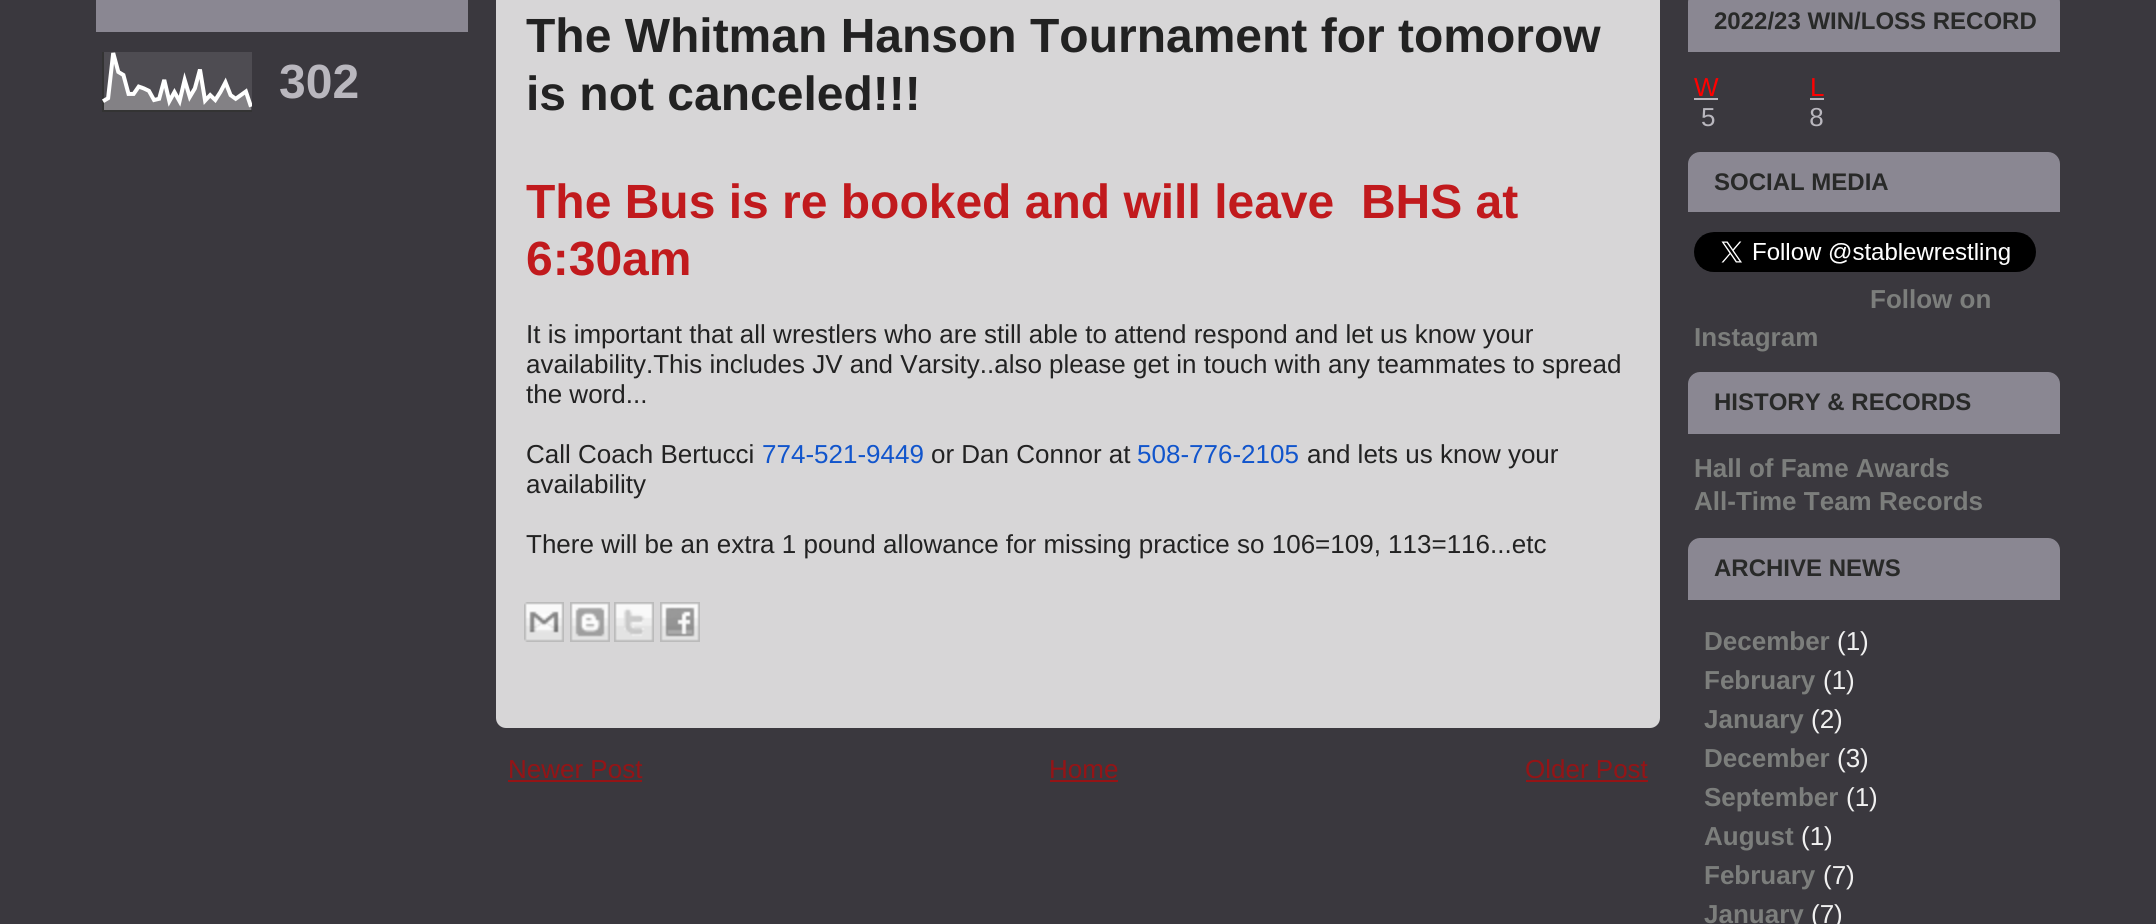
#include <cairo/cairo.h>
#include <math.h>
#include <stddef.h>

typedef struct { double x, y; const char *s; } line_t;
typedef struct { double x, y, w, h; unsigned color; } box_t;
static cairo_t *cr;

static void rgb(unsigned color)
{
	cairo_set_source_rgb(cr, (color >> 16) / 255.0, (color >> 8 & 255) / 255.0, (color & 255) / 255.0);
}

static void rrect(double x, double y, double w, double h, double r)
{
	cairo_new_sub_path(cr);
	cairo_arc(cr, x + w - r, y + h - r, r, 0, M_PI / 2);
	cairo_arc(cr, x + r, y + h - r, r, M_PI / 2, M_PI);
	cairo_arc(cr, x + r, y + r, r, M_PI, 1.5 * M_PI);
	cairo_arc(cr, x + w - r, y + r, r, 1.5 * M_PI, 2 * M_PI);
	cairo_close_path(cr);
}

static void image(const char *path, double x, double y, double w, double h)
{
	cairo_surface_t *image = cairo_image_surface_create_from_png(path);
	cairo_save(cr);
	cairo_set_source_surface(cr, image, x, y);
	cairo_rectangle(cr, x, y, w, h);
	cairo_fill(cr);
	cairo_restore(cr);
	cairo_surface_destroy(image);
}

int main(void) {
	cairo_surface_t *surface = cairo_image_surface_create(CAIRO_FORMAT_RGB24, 2156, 924);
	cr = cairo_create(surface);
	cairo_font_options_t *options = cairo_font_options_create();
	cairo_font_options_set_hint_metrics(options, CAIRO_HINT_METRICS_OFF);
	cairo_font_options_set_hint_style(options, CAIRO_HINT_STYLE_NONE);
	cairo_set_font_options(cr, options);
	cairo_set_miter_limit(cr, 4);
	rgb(0x3a383e);
	cairo_paint(cr);
	rgb(0x8a8792);
	cairo_rectangle(cr, 96, 0, 372, 32);
	cairo_fill(cr);
	image("img/1.png", 102, 52, 150, 60);
	rgb(0xd7d6d7);
	rrect(496, -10, 1164, 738, 10);
	cairo_fill(cr);
	image("img/2.png", 524, 602, 40, 40);
	image("img/3.png", 570, 602, 40, 40);
	image("img/4.png", 614, 602, 40, 40);
	image("img/5.png", 660, 602, 40, 40);
	{
		static const box_t items[] = {
			{508, 780, 134, 2, 0x941416},
			{1050, 780, 68, 2, 0x941416},
			{1526, 780, 122, 2, 0x941416},
		};
		for (size_t i = 0; i < sizeof items / sizeof *items; i++) {
			rgb(items[i].color);
			cairo_rectangle(cr, items[i].x, items[i].y, items[i].w, items[i].h);
			cairo_fill(cr);
		}
	}
	rgb(0x8a8792);
	cairo_new_path(cr);
	cairo_move_to(cr, 1700, -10);
	cairo_line_to(cr, 2048, -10);
	cairo_curve_to(cr, 2054.5, -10, 2060, -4.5, 2060, 2);
	cairo_line_to(cr, 2060, 52);
	cairo_line_to(cr, 1688, 52);
	cairo_line_to(cr, 1688, 2);
	cairo_curve_to(cr, 1688, -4.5, 1693.5, -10, 1700, -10);
	cairo_close_path(cr);
	cairo_fill(cr);
	rgb(0xb9b7be);
	cairo_rectangle(cr, 1694, 98, 24, 2);
	cairo_fill(cr);
	cairo_rectangle(cr, 1810, 98, 14, 2);
	cairo_fill(cr);
	rgb(0x8a8792);
	cairo_new_path(cr);
	cairo_move_to(cr, 1700, 152);
	cairo_line_to(cr, 2048, 152);
	cairo_curve_to(cr, 2054.5, 152, 2060, 157.5, 2060, 164);
	cairo_line_to(cr, 2060, 212);
	cairo_line_to(cr, 1688, 212);
	cairo_line_to(cr, 1688, 164);
	cairo_curve_to(cr, 1688, 157.5, 1693.5, 152, 1700, 152);
	cairo_close_path(cr);
	cairo_fill(cr);
	image("img/6.png", 1694, 232, 342, 40);
	cairo_new_path(cr);
	cairo_move_to(cr, 1700, 372);
	cairo_line_to(cr, 2048, 372);
	cairo_curve_to(cr, 2054.5, 372, 2060, 377.5, 2060, 384);
	cairo_line_to(cr, 2060, 434);
	cairo_line_to(cr, 1688, 434);
	cairo_line_to(cr, 1688, 384);
	cairo_curve_to(cr, 1688, 377.5, 1693.5, 372, 1700, 372);
	cairo_close_path(cr);
	cairo_fill(cr);
	cairo_new_path(cr);
	cairo_move_to(cr, 1700, 538);
	cairo_line_to(cr, 2048, 538);
	cairo_curve_to(cr, 2054.5, 538, 2060, 543.5, 2060, 550);
	cairo_line_to(cr, 2060, 600);
	cairo_line_to(cr, 1688, 600);
	cairo_line_to(cr, 1688, 550);
	cairo_curve_to(cr, 1688, 543.5, 1693.5, 538, 1700, 538);
	cairo_close_path(cr);
	cairo_fill(cr);
	cairo_select_font_face(cr, "Liberation Sans", CAIRO_FONT_SLANT_NORMAL, CAIRO_FONT_WEIGHT_BOLD);
	cairo_set_font_size(cr, 48);
	rgb(0xb9b7be);
	cairo_move_to(cr, 279, 98);
	cairo_show_text(cr, "302");
	rgb(0x222222);
	cairo_move_to(cr, 526, 52);
	cairo_show_text(cr, "The Whitman Hanson Tournament for tomorow");
	cairo_move_to(cr, 526, 110);
	cairo_show_text(cr, "is not canceled!!!");
	rgb(0xc11a1d);
	cairo_move_to(cr, 526, 218);
	cairo_show_text(cr, "The Bus is re booked and will leave  BHS at");
	cairo_move_to(cr, 526, 275);
	cairo_show_text(cr, "6:30am");
	cairo_select_font_face(cr, "Liberation Sans", CAIRO_FONT_SLANT_NORMAL, CAIRO_FONT_WEIGHT_NORMAL);
	cairo_set_font_size(cr, 26);
	rgb(0x222222);
	{
		static const line_t items[] = {
			{526, 343, "It is important that all wrestlers who are still able to attend respond and let us know your"},
			{526, 373, "availability.This includes JV and Varsity..also please get in touch with any teammates to spread"},
			{526, 403, "the word..."},
			{526, 463, "Call Coach Bertucci"},
		};
		for (size_t i = 0; i < sizeof items / sizeof *items; i++) {
			cairo_move_to(cr, items[i].x, items[i].y);
			cairo_show_text(cr, items[i].s);
		}
	}
	rgb(0x1155cc);
	cairo_move_to(cr, 762, 463);
	cairo_show_text(cr, "774-521-9449");
	rgb(0x222222);
	cairo_move_to(cr, 931, 463);
	cairo_show_text(cr, "or Dan Connor at");
	rgb(0x1155cc);
	cairo_move_to(cr, 1137, 463);
	cairo_show_text(cr, "508-776-2105");
	rgb(0x222222);
	{
		static const line_t items[] = {
			{1307, 463, "and lets us know your"},
			{526, 493, "availability"},
			{526, 553, "There will be an extra 1 pound allowance for missing practice so 106=109, 113=116...etc"},
		};
		for (size_t i = 0; i < sizeof items / sizeof *items; i++) {
			cairo_move_to(cr, items[i].x, items[i].y);
			cairo_show_text(cr, items[i].s);
		}
	}
	rgb(0x941416);
	{
		static const line_t items[] = {
			{508, 778, "Newer Post"},
			{1049, 778, "Home"},
			{1525, 778, "Older Post"},
		};
		for (size_t i = 0; i < sizeof items / sizeof *items; i++) {
			cairo_move_to(cr, items[i].x, items[i].y);
			cairo_show_text(cr, items[i].s);
		}
	}
	cairo_select_font_face(cr, "Liberation Sans", CAIRO_FONT_SLANT_NORMAL, CAIRO_FONT_WEIGHT_BOLD);
	cairo_set_font_size(cr, 24);
	rgb(0x282928);
	cairo_move_to(cr, 1714, 29);
	cairo_show_text(cr, "2022/23 WIN/LOSS RECORD");
	cairo_select_font_face(cr, "Liberation Sans", CAIRO_FONT_SLANT_NORMAL, CAIRO_FONT_WEIGHT_NORMAL);
	cairo_set_font_size(cr, 26);
	rgb(0xff0000);
	cairo_move_to(cr, 1694, 96);
	cairo_show_text(cr, "W");
	cairo_move_to(cr, 1810, 96);
	cairo_show_text(cr, "L");
	rgb(0xb9b7be);
	cairo_move_to(cr, 1701, 126);
	cairo_show_text(cr, "5             8");
	cairo_select_font_face(cr, "Liberation Sans", CAIRO_FONT_SLANT_NORMAL, CAIRO_FONT_WEIGHT_BOLD);
	cairo_set_font_size(cr, 24);
	rgb(0x282928);
	cairo_move_to(cr, 1714, 190);
	cairo_show_text(cr, "SOCIAL MEDIA");
	cairo_set_font_size(cr, 26);
	rgb(0x7c7e7c);
	cairo_move_to(cr, 1870, 308);
	cairo_show_text(cr, "Follow on");
	cairo_move_to(cr, 1694, 346);
	cairo_show_text(cr, "Instagram");
	cairo_set_font_size(cr, 24);
	rgb(0x282928);
	cairo_move_to(cr, 1714, 410);
	cairo_show_text(cr, "HISTORY & RECORDS");
	cairo_set_font_size(cr, 26);
	rgb(0x7c7e7c);
	cairo_move_to(cr, 1694, 477);
	cairo_show_text(cr, "Hall of Fame Awards");
	cairo_move_to(cr, 1694, 510);
	cairo_show_text(cr, "All-Time Team Records");
	cairo_set_font_size(cr, 24);
	rgb(0x282928);
	cairo_move_to(cr, 1714, 576);
	cairo_show_text(cr, "ARCHIVE NEWS");
	cairo_set_font_size(cr, 26);
	rgb(0x7c7e7c);
	cairo_move_to(cr, 1704, 650);
	cairo_show_text(cr, "December");
	cairo_select_font_face(cr, "Liberation Sans", CAIRO_FONT_SLANT_NORMAL, CAIRO_FONT_WEIGHT_NORMAL);
	rgb(0xf0f0f0);
	cairo_move_to(cr, 1837, 650);
	cairo_show_text(cr, "(1)");
	cairo_select_font_face(cr, "Liberation Sans", CAIRO_FONT_SLANT_NORMAL, CAIRO_FONT_WEIGHT_BOLD);
	rgb(0x7c7e7c);
	cairo_move_to(cr, 1704, 689);
	cairo_show_text(cr, "February");
	cairo_select_font_face(cr, "Liberation Sans", CAIRO_FONT_SLANT_NORMAL, CAIRO_FONT_WEIGHT_NORMAL);
	rgb(0xf0f0f0);
	cairo_move_to(cr, 1823, 689);
	cairo_show_text(cr, "(1)");
	cairo_select_font_face(cr, "Liberation Sans", CAIRO_FONT_SLANT_NORMAL, CAIRO_FONT_WEIGHT_BOLD);
	rgb(0x7c7e7c);
	cairo_move_to(cr, 1704, 728);
	cairo_show_text(cr, "January");
	cairo_select_font_face(cr, "Liberation Sans", CAIRO_FONT_SLANT_NORMAL, CAIRO_FONT_WEIGHT_NORMAL);
	rgb(0xf0f0f0);
	cairo_move_to(cr, 1811, 728);
	cairo_show_text(cr, "(2)");
	cairo_select_font_face(cr, "Liberation Sans", CAIRO_FONT_SLANT_NORMAL, CAIRO_FONT_WEIGHT_BOLD);
	rgb(0x7c7e7c);
	cairo_move_to(cr, 1704, 767);
	cairo_show_text(cr, "December");
	cairo_select_font_face(cr, "Liberation Sans", CAIRO_FONT_SLANT_NORMAL, CAIRO_FONT_WEIGHT_NORMAL);
	rgb(0xf0f0f0);
	cairo_move_to(cr, 1837, 767);
	cairo_show_text(cr, "(3)");
	cairo_select_font_face(cr, "Liberation Sans", CAIRO_FONT_SLANT_NORMAL, CAIRO_FONT_WEIGHT_BOLD);
	rgb(0x7c7e7c);
	cairo_move_to(cr, 1704, 806);
	cairo_show_text(cr, "September");
	cairo_select_font_face(cr, "Liberation Sans", CAIRO_FONT_SLANT_NORMAL, CAIRO_FONT_WEIGHT_NORMAL);
	rgb(0xf0f0f0);
	cairo_move_to(cr, 1846, 806);
	cairo_show_text(cr, "(1)");
	cairo_select_font_face(cr, "Liberation Sans", CAIRO_FONT_SLANT_NORMAL, CAIRO_FONT_WEIGHT_BOLD);
	rgb(0x7c7e7c);
	cairo_move_to(cr, 1704, 845);
	cairo_show_text(cr, "August");
	cairo_select_font_face(cr, "Liberation Sans", CAIRO_FONT_SLANT_NORMAL, CAIRO_FONT_WEIGHT_NORMAL);
	rgb(0xf0f0f0);
	cairo_move_to(cr, 1801, 845);
	cairo_show_text(cr, "(1)");
	cairo_select_font_face(cr, "Liberation Sans", CAIRO_FONT_SLANT_NORMAL, CAIRO_FONT_WEIGHT_BOLD);
	rgb(0x7c7e7c);
	cairo_move_to(cr, 1704, 884);
	cairo_show_text(cr, "February");
	cairo_select_font_face(cr, "Liberation Sans", CAIRO_FONT_SLANT_NORMAL, CAIRO_FONT_WEIGHT_NORMAL);
	rgb(0xf0f0f0);
	cairo_move_to(cr, 1823, 884);
	cairo_show_text(cr, "(7)");
	cairo_select_font_face(cr, "Liberation Sans", CAIRO_FONT_SLANT_NORMAL, CAIRO_FONT_WEIGHT_BOLD);
	rgb(0x7c7e7c);
	cairo_move_to(cr, 1704, 923);
	cairo_show_text(cr, "January");
	cairo_select_font_face(cr, "Liberation Sans", CAIRO_FONT_SLANT_NORMAL, CAIRO_FONT_WEIGHT_NORMAL);
	rgb(0xf0f0f0);
	cairo_move_to(cr, 1811, 923);
	cairo_show_text(cr, "(7)");
	cairo_surface_write_to_png(surface, "page.png");
	cairo_font_options_destroy(options);
	cairo_destroy(cr);
	cairo_surface_destroy(surface);
	return 0;
}
